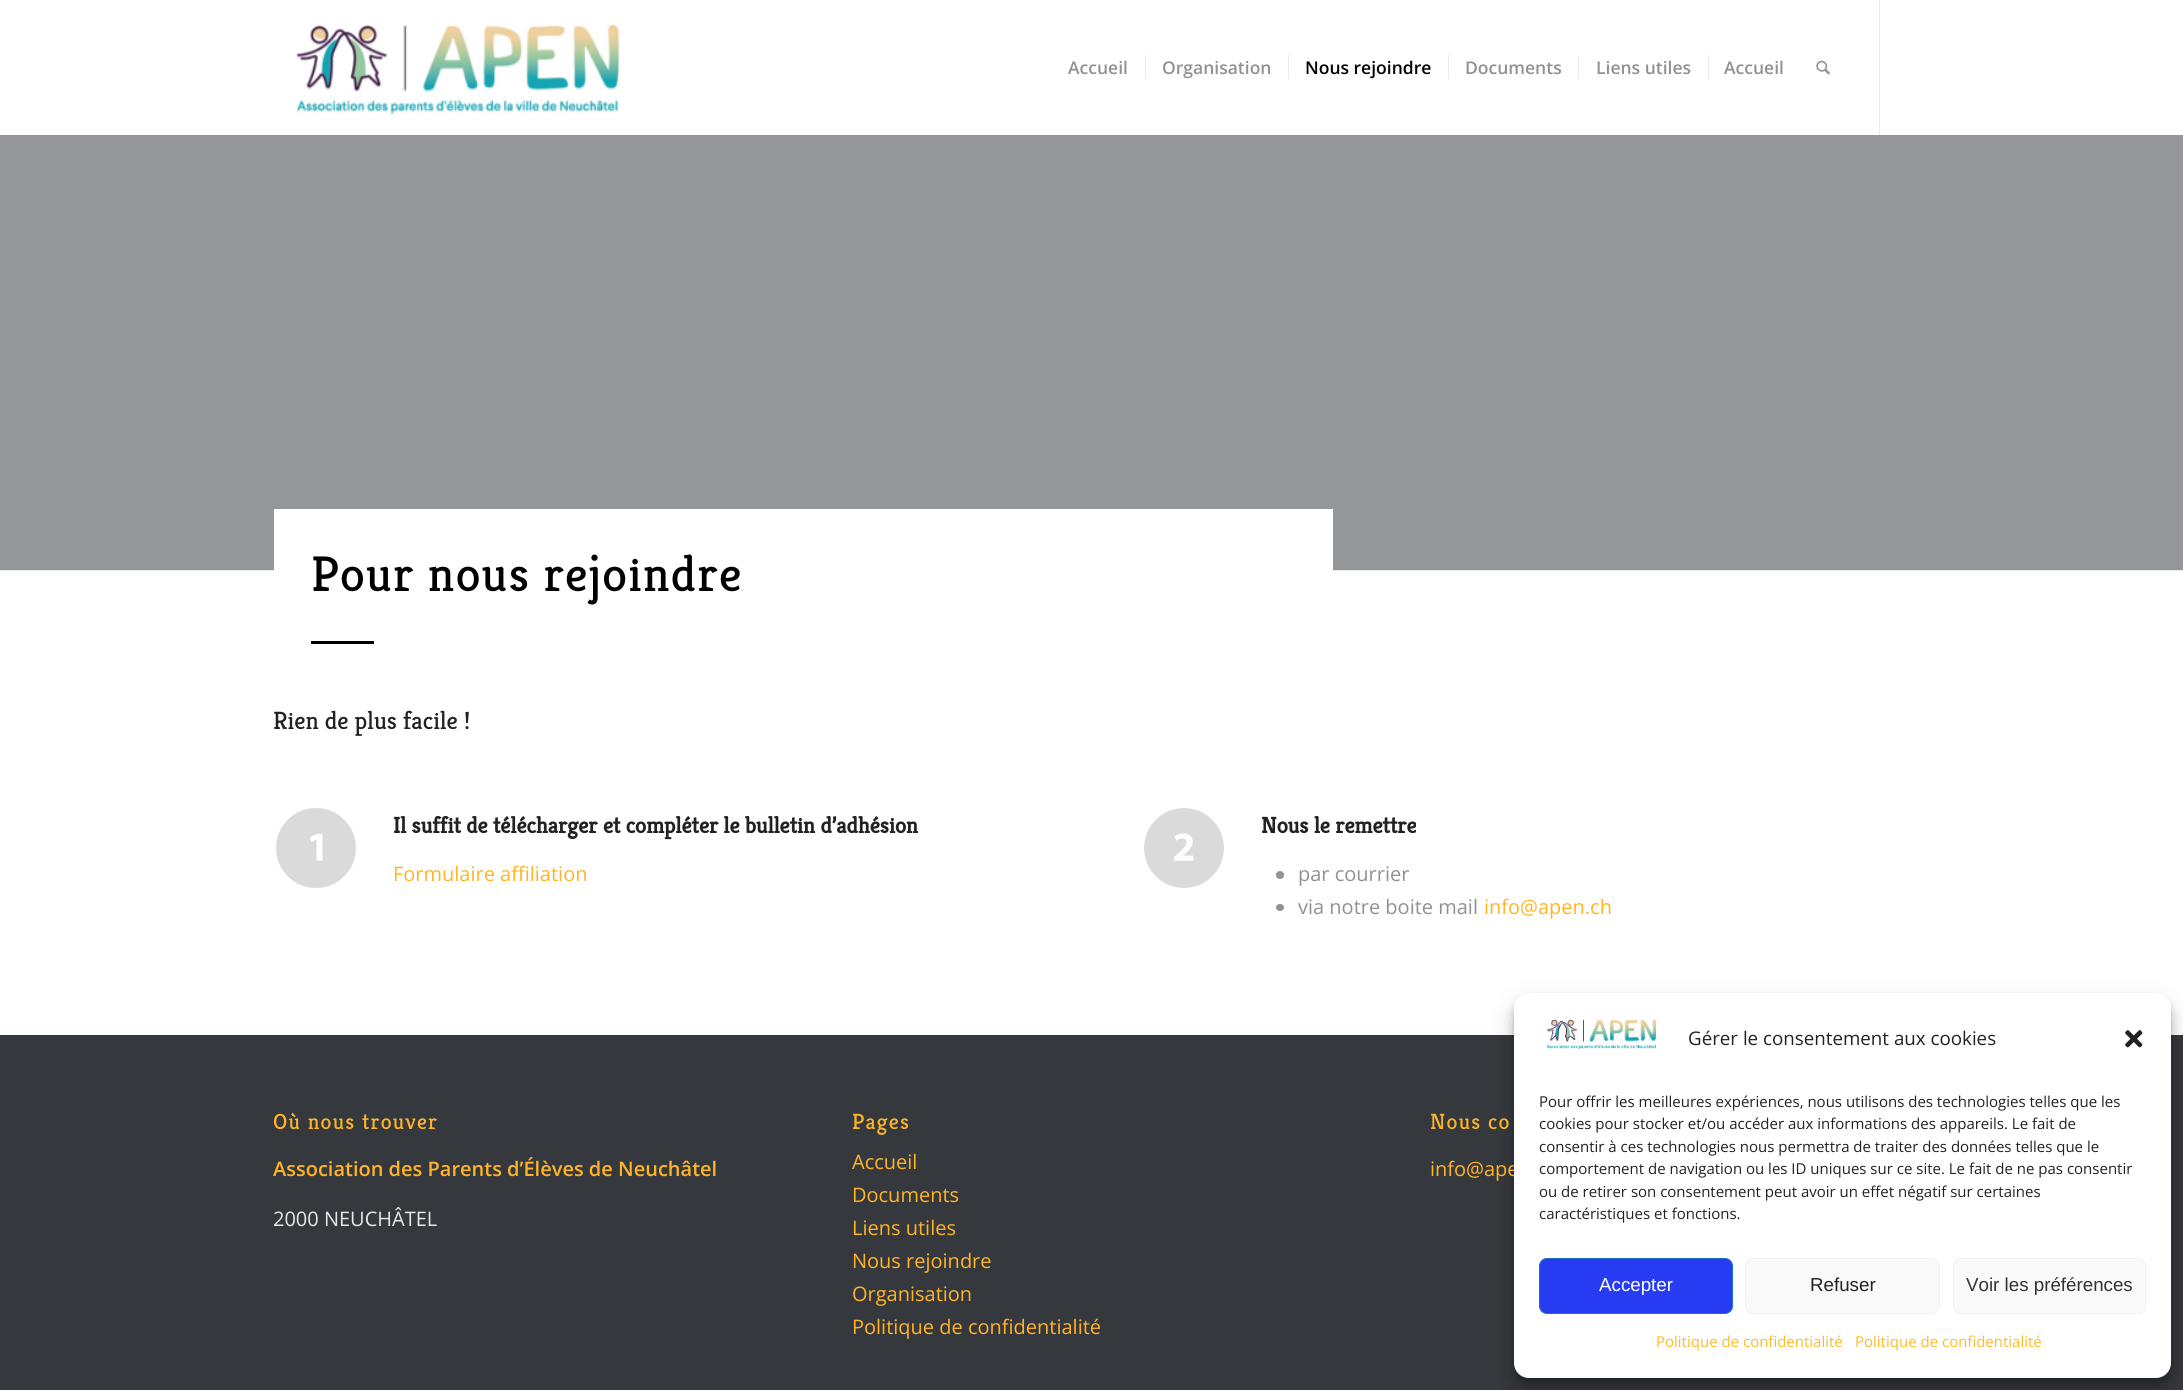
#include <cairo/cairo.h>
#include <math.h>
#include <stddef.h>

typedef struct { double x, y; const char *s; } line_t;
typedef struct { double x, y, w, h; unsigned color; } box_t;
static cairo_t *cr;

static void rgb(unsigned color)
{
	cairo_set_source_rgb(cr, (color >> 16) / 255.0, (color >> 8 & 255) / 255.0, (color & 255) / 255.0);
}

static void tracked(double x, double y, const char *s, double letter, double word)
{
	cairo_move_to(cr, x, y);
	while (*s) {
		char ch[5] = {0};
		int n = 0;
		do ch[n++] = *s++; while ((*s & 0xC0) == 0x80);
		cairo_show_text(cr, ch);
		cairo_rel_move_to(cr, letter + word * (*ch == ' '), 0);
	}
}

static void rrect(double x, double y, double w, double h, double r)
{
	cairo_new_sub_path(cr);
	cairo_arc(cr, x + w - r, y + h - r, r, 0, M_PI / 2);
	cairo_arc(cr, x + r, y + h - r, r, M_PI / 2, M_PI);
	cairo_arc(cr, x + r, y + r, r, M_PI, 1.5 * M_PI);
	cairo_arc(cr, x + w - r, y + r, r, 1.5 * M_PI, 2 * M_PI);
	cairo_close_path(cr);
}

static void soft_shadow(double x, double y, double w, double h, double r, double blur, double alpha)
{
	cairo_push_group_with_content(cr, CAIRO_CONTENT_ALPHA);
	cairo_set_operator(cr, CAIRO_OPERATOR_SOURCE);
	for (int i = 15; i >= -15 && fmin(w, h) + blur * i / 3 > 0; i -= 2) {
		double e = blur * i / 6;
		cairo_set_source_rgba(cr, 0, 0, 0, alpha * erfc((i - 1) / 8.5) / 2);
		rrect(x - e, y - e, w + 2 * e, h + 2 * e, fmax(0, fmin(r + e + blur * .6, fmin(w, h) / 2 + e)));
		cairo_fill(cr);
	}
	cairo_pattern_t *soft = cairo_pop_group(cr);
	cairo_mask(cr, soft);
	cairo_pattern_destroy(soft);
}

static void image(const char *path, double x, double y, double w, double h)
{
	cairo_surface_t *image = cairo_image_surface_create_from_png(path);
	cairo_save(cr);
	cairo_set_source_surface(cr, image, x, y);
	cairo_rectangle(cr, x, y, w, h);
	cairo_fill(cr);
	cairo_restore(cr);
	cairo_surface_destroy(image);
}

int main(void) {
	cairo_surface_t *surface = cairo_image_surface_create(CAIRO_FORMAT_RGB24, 2183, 1390);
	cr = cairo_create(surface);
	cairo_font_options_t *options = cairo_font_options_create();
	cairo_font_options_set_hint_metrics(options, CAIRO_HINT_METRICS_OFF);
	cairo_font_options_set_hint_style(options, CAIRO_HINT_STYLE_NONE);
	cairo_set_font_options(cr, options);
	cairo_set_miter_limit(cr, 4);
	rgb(0xffffff);
	cairo_paint(cr);
	image("img/1.png", 296, 24, 324, 91);
	{
		static const box_t items[] = {
			{1879, 0, 1, 135, 0xebebeb},
			{1145, 55, 1, 24, 0xebebeb},
			{1288, 55, 1, 24, 0xebebeb},
			{1448, 55, 1, 24, 0xebebeb},
			{1578, 55, 1, 24, 0xebebeb},
			{1708, 55, 1, 24, 0xebebeb},
		};
		for (size_t i = 0; i < sizeof items / sizeof *items; i++) {
			rgb(items[i].color);
			cairo_rectangle(cr, items[i].x, items[i].y, items[i].w, items[i].h);
			cairo_fill(cr);
		}
	}
	image("img/2.png", 1816, 60, 14, 15);
	{
		static const box_t items[] = {
			{0, 135, 2183, 435, 0x959699},
			{0, 570, 2183, 1, 0xebebeb},
			{274, 509, 1059, 62, 0xffffff},
			{311, 641, 63, 3, 0x000000},
		};
		for (size_t i = 0; i < sizeof items / sizeof *items; i++) {
			rgb(items[i].color);
			cairo_rectangle(cr, items[i].x, items[i].y, items[i].w, items[i].h);
			cairo_fill(cr);
		}
	}
	rgb(0xdadada);
	cairo_arc(cr, 316, 848, 40, 0, 2 * M_PI);
	cairo_fill(cr);
	rgb(0xffffff);
	cairo_new_path(cr);
	cairo_move_to(cr, 316.5, 839.5);
	cairo_line_to(cr, 311, 842);
	cairo_line_to(cr, 310, 837);
	cairo_line_to(cr, 317, 834);
	cairo_line_to(cr, 322.5, 834);
	cairo_line_to(cr, 322.5, 860.5);
	cairo_line_to(cr, 316.5, 860.5);
	cairo_close_path(cr);
	cairo_fill(cr);
	rgb(0xdadada);
	cairo_arc(cr, 1184, 848, 40, 0, 2 * M_PI);
	cairo_fill(cr);
	image("img/3.png", 1174, 833, 20, 28);
	rgb(0x919191);
	cairo_arc(cr, 1280, 875, 4, 0, 2 * M_PI);
	cairo_fill(cr);
	rrect(1276, 904, 8, 7, 3.5);
	cairo_fill(cr);
	rgb(0x35383c);
	cairo_rectangle(cr, 0, 1035, 2183, 355);
	cairo_fill(cr);
	rgb(0x000000);
	soft_shadow(1514, 1000, 657, 385, 15, 4, 0.23);
	soft_shadow(1514, 1005, 657, 385, 15, 12.5, 0.19);
	cairo_select_font_face(cr, "Open Sans SemiBold", CAIRO_FONT_SLANT_NORMAL, CAIRO_FONT_WEIGHT_NORMAL);
	cairo_set_font_size(cr, 17.5);
	rgb(0x919191);
	cairo_move_to(cr, 1068, 74);
	cairo_show_text(cr, "Accueil");
	cairo_move_to(cr, 1162, 74);
	cairo_show_text(cr, "Organisation");
	rgb(0x000000);
	cairo_move_to(cr, 1305, 74);
	cairo_show_text(cr, "Nous rejoindre");
	rgb(0x919191);
	{
		static const line_t items[] = {
			{1465, 74, "Documents"},
			{1596, 74, "Liens utiles"},
			{1724, 74, "Accueil"},
		};
		for (size_t i = 0; i < sizeof items / sizeof *items; i++) {
			cairo_move_to(cr, items[i].x, items[i].y);
			cairo_show_text(cr, items[i].s);
		}
	}
	cairo_select_font_face(cr, "Kreon Light", CAIRO_FONT_SLANT_NORMAL, CAIRO_FONT_WEIGHT_NORMAL);
	cairo_set_font_size(cr, 50);
	rgb(0x000000);
	tracked(311, 591, "Pour nous rejoindre", 1.25, 0);
	cairo_set_font_size(cr, 25);
	rgb(0x222222);
	cairo_move_to(cr, 273, 729);
	cairo_show_text(cr, "Rien de plus facile !");
	cairo_select_font_face(cr, "Kreon", CAIRO_FONT_SLANT_NORMAL, CAIRO_FONT_WEIGHT_BOLD);
	cairo_set_font_size(cr, 22.5);
	cairo_move_to(cr, 393, 833);
	cairo_show_text(cr, "Il suffit de télécharger et compléter le bulletin d’adhésion");
	cairo_select_font_face(cr, "Open Sans", CAIRO_FONT_SLANT_NORMAL, CAIRO_FONT_WEIGHT_NORMAL);
	cairo_set_font_size(cr, 20);
	rgb(0xffb428);
	cairo_move_to(cr, 393, 881);
	cairo_show_text(cr, "Formulaire affiliation");
	cairo_select_font_face(cr, "Kreon", CAIRO_FONT_SLANT_NORMAL, CAIRO_FONT_WEIGHT_BOLD);
	cairo_set_font_size(cr, 22.5);
	rgb(0x222222);
	cairo_move_to(cr, 1261, 833);
	cairo_show_text(cr, "Nous le remettre");
	cairo_select_font_face(cr, "Open Sans", CAIRO_FONT_SLANT_NORMAL, CAIRO_FONT_WEIGHT_NORMAL);
	cairo_set_font_size(cr, 20);
	rgb(0x919191);
	cairo_move_to(cr, 1298, 881);
	cairo_show_text(cr, "par courrier");
	cairo_move_to(cr, 1298, 914);
	cairo_show_text(cr, "via notre boite mail");
	rgb(0xffb428);
	cairo_move_to(cr, 1484, 914);
	cairo_show_text(cr, "info@apen.ch");
	cairo_select_font_face(cr, "Kreon Light", CAIRO_FONT_SLANT_NORMAL, CAIRO_FONT_WEIGHT_NORMAL);
	cairo_set_font_size(cr, 22);
	tracked(273, 1129, "Où nous trouver", 1.25, 0);
	cairo_select_font_face(cr, "Open Sans SemiBold", CAIRO_FONT_SLANT_NORMAL, CAIRO_FONT_WEIGHT_NORMAL);
	cairo_set_font_size(cr, 20);
	cairo_move_to(cr, 273, 1176);
	cairo_show_text(cr, "Association des Parents d’Élèves de Neuchâtel");
	cairo_select_font_face(cr, "Open Sans", CAIRO_FONT_SLANT_NORMAL, CAIRO_FONT_WEIGHT_NORMAL);
	rgb(0xe8e8e8);
	cairo_move_to(cr, 273, 1226);
	cairo_show_text(cr, "2000 NEUCHÂTEL");
	cairo_select_font_face(cr, "Kreon Light", CAIRO_FONT_SLANT_NORMAL, CAIRO_FONT_WEIGHT_NORMAL);
	cairo_set_font_size(cr, 22);
	rgb(0xffb428);
	tracked(852, 1129, "Pages", 1.25, 0);
	cairo_select_font_face(cr, "Open Sans", CAIRO_FONT_SLANT_NORMAL, CAIRO_FONT_WEIGHT_NORMAL);
	cairo_set_font_size(cr, 20);
	{
		static const line_t items[] = {
			{852, 1169, "Accueil"},
			{852, 1202, "Documents"},
			{852, 1235, "Liens utiles"},
			{852, 1268, "Nous rejoindre"},
			{852, 1301, "Organisation"},
			{852, 1334, "Politique de confidentialité"},
		};
		for (size_t i = 0; i < sizeof items / sizeof *items; i++) {
			cairo_move_to(cr, items[i].x, items[i].y);
			cairo_show_text(cr, items[i].s);
		}
	}
	cairo_select_font_face(cr, "Kreon Light", CAIRO_FONT_SLANT_NORMAL, CAIRO_FONT_WEIGHT_NORMAL);
	cairo_set_font_size(cr, 22);
	tracked(1430, 1129, "Nous co", 1.25, 0);
	cairo_select_font_face(cr, "Open Sans", CAIRO_FONT_SLANT_NORMAL, CAIRO_FONT_WEIGHT_NORMAL);
	cairo_set_font_size(cr, 20);
	cairo_move_to(cr, 1430, 1176);
	cairo_show_text(cr, "info@ape");
	rgb(0xffffff);
	rrect(1514, 993, 657, 385, 15);
	cairo_fill(cr);
	image("img/4.png", 1546, 1019, 111, 30);
	cairo_set_font_size(cr, 18.75);
	rgb(0x222222);
	cairo_move_to(cr, 1688, 1045);
	cairo_show_text(cr, "Gérer le consentement aux cookies");
	image("img/5.png", 2125, 1030, 18, 18);
	cairo_set_font_size(cr, 15);
	{
		static const line_t items[] = {
			{1539, 1107, "Pour offrir les meilleures expériences, nous utilisons des technologies telles que les"},
			{1539, 1129, "cookies pour stocker et/ou accéder aux informations des appareils. Le fait de"},
			{1539, 1152, "consentir à ces technologies nous permettra de traiter des données telles que le"},
			{1539, 1174, "comportement de navigation ou les ID uniques sur ce site. Le fait de ne pas consentir"},
			{1539, 1197, "ou de retirer son consentement peut avoir un effet négatif sur certaines"},
			{1539, 1219, "caractéristiques et fonctions."},
		};
		for (size_t i = 0; i < sizeof items / sizeof *items; i++) {
			cairo_move_to(cr, items[i].x, items[i].y);
			cairo_show_text(cr, items[i].s);
		}
	}
	rgb(0x263bf2);
	rrect(1539.5, 1258.5, 193, 55, 7.5);
	cairo_fill_preserve(cr);
	rgb(0x1e73be);
	cairo_set_line_width(cr, 1);
	cairo_stroke(cr);
	cairo_select_font_face(cr, "Liberation Sans", CAIRO_FONT_SLANT_NORMAL, CAIRO_FONT_WEIGHT_NORMAL);
	cairo_set_font_size(cr, 18.75);
	rgb(0xffffff);
	cairo_move_to(cr, 1599, 1291);
	cairo_show_text(cr, "Accepter");
	rgb(0xf9f9f9);
	rrect(1745.5, 1258.5, 194, 55, 7.5);
	cairo_fill_preserve(cr);
	rgb(0xf2f2f2);
	cairo_stroke(cr);
	rgb(0x222222);
	cairo_move_to(cr, 1810, 1291);
	cairo_show_text(cr, "Refuser");
	rgb(0xf9f9f9);
	rrect(1953.5, 1258.5, 192, 55, 7.5);
	cairo_fill_preserve(cr);
	rgb(0xf2f2f2);
	cairo_stroke(cr);
	rgb(0x333333);
	cairo_move_to(cr, 1966, 1291);
	cairo_show_text(cr, "Voir les préférences");
	cairo_select_font_face(cr, "Open Sans", CAIRO_FONT_SLANT_NORMAL, CAIRO_FONT_WEIGHT_NORMAL);
	cairo_set_font_size(cr, 15);
	rgb(0xfcbc28);
	cairo_move_to(cr, 1656, 1347);
	cairo_show_text(cr, "Politique de confidentialité");
	cairo_move_to(cr, 1855, 1347);
	cairo_show_text(cr, "Politique de confidentialité");
	cairo_surface_write_to_png(surface, "page.png");
	cairo_font_options_destroy(options);
	cairo_destroy(cr);
	cairo_surface_destroy(surface);
	return 0;
}
